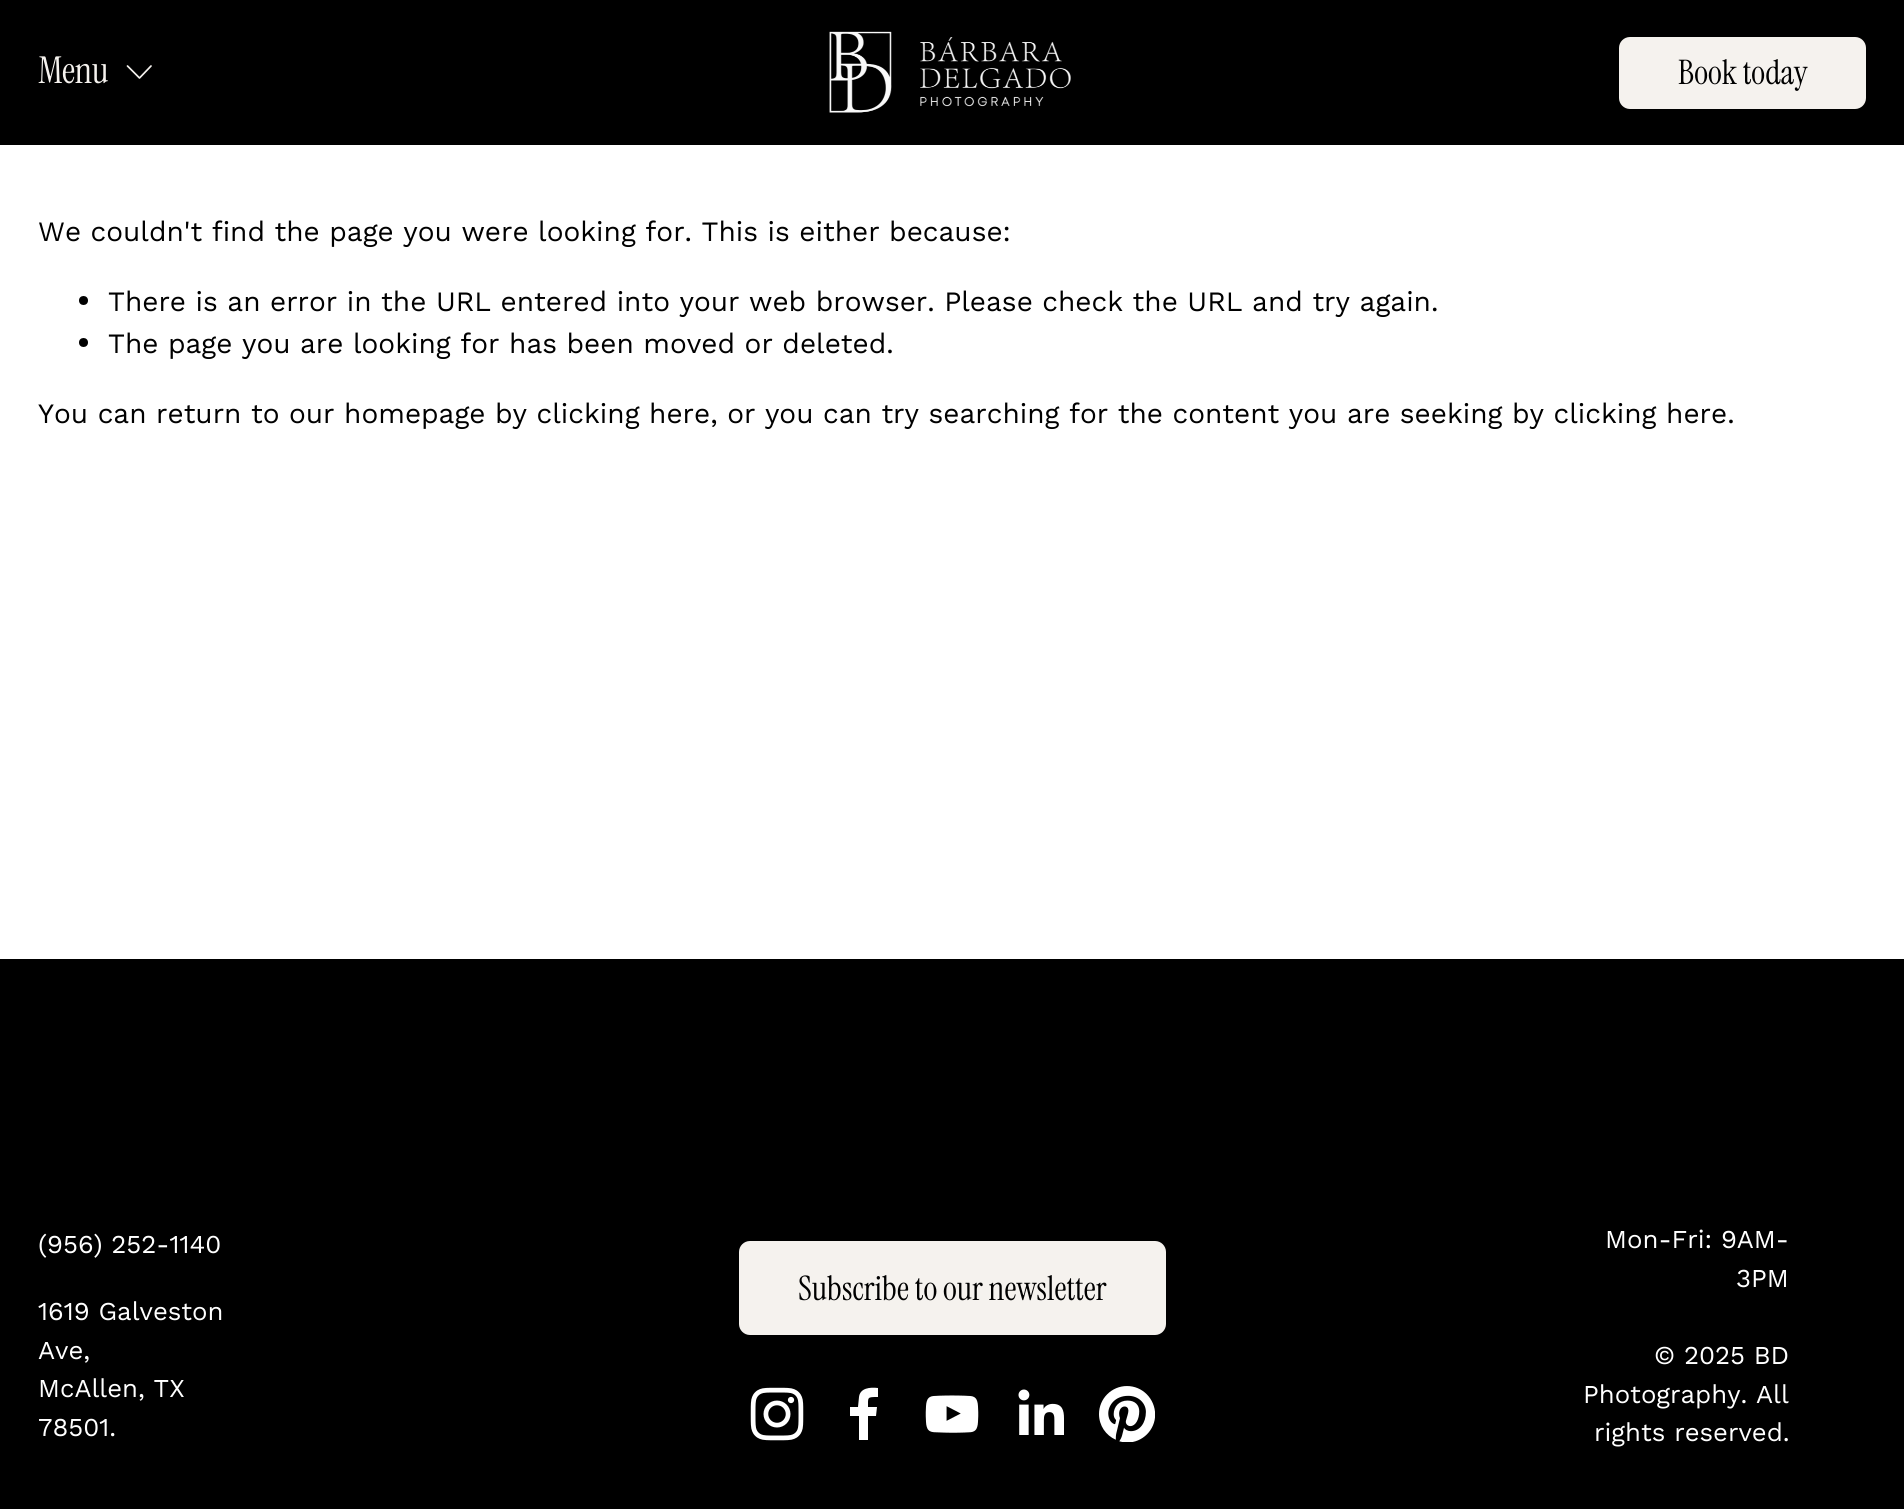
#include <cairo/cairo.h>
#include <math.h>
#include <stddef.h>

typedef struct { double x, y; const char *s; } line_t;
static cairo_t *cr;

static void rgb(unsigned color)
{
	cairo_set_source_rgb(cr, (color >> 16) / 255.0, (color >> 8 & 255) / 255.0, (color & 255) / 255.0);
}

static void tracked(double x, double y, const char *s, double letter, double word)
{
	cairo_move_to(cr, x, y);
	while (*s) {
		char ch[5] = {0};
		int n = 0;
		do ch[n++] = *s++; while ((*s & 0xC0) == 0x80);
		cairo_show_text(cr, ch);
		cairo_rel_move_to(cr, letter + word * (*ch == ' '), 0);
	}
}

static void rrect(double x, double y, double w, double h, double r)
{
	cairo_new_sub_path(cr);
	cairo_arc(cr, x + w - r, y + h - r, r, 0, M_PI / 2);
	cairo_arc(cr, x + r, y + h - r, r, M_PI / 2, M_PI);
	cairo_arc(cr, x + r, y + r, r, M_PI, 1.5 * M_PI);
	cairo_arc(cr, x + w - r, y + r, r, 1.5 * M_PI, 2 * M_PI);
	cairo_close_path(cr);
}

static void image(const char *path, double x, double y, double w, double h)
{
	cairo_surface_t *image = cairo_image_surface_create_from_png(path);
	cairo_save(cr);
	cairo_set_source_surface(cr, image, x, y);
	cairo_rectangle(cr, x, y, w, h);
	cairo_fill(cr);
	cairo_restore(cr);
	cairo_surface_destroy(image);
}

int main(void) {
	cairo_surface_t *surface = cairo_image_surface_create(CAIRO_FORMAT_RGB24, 1904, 1509);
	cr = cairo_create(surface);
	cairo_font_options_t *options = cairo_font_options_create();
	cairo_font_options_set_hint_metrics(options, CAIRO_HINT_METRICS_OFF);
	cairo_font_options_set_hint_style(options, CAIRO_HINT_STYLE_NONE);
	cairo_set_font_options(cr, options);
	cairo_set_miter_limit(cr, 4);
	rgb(0xffffff);
	cairo_paint(cr);
	rgb(0x000000);
	cairo_rectangle(cr, 0, 0, 1904, 145);
	cairo_fill(cr);
	cairo_new_path(cr);
	cairo_move_to(cr, 151, 66);
	cairo_line_to(cr, 139.5, 78);
	cairo_line_to(cr, 127.5, 66);
	rgb(0xf5f2ee);
	cairo_set_line_width(cr, 1.7);
	cairo_set_line_cap(cr, CAIRO_LINE_CAP_ROUND);
	cairo_set_line_join(cr, CAIRO_LINE_JOIN_ROUND);
	cairo_stroke(cr);
	image("img/1.png", 829, 31, 242, 82);
	rrect(1619, 37, 247, 72, 11);
	cairo_fill(cr);
	rgb(0x000000);
	cairo_arc(cr, 83.5, 300.5, 4.5, 0, 2 * M_PI);
	cairo_fill(cr);
	cairo_arc(cr, 83.5, 342.5, 4.5, 0, 2 * M_PI);
	cairo_fill(cr);
	cairo_rectangle(cr, 0, 959, 1904, 550);
	cairo_fill(cr);
	rgb(0xf5f2ee);
	rrect(739, 1241, 427, 94, 11);
	cairo_fill(cr);
	image("img/2.png", 750, 1387, 54, 54);
	rgb(0xffffff);
	cairo_new_path(cr);
	cairo_move_to(cr, 868, 1440);
	cairo_line_to(cr, 868, 1416);
	cairo_line_to(cr, 876, 1416);
	cairo_line_to(cr, 877, 1407);
	cairo_line_to(cr, 868, 1407);
	cairo_curve_to(cr, 868, 1397, 867, 1397, 878, 1397);
	cairo_line_to(cr, 878, 1388);
	cairo_curve_to(cr, 870, 1387, 860, 1388, 859, 1397);
	cairo_line_to(cr, 858, 1407);
	cairo_line_to(cr, 850, 1407);
	cairo_line_to(cr, 850, 1416);
	cairo_line_to(cr, 859, 1416);
	cairo_line_to(cr, 859, 1440);
	cairo_close_path(cr);
	cairo_fill(cr);
	image("img/3.png", 925, 1395, 54, 38);
	image("img/4.png", 1018, 1389, 46, 46);
	image("img/5.png", 1099, 1386, 56, 56);
	cairo_select_font_face(cr, "Instrument Serif", CAIRO_FONT_SLANT_NORMAL, CAIRO_FONT_WEIGHT_NORMAL);
	cairo_set_font_size(cr, 37);
	rgb(0xf5f2ee);
	tracked(38, 83, "Menu", -0.5, 0);
	cairo_set_font_size(cr, 33.75);
	rgb(0x000000);
	cairo_move_to(cr, 1678, 84);
	cairo_show_text(cr, "Book today");
	cairo_select_font_face(cr, "Work Sans", CAIRO_FONT_SLANT_NORMAL, CAIRO_FONT_WEIGHT_NORMAL);
	cairo_set_font_size(cr, 28);
	{
		static const line_t items[] = {
			{38, 241, "We couldn't find the page you were looking for. This is either because:"},
			{108, 311, "There is an error in the URL entered into your web browser. Please check the URL and try again."},
			{108, 353, "The page you are looking for has been moved or deleted."},
			{38, 423, "You can return to our homepage by clicking here, or you can try searching for the content you are seeking by clicking here."},
		};
		for (size_t i = 0; i < sizeof items / sizeof *items; i++) {
			cairo_move_to(cr, items[i].x, items[i].y);
			cairo_show_text(cr, items[i].s);
		}
	}
	cairo_set_font_size(cr, 25.75);
	rgb(0xffffff);
	{
		static const line_t items[] = {
			{38, 1253, "(956) 252-1140"},
			{38, 1320, "1619 Galveston"},
			{38, 1359, "Ave,"},
			{38, 1397, "McAllen, TX"},
			{38, 1436, "78501."},
		};
		for (size_t i = 0; i < sizeof items / sizeof *items; i++) {
			cairo_move_to(cr, items[i].x, items[i].y);
			cairo_show_text(cr, items[i].s);
		}
	}
	cairo_select_font_face(cr, "Instrument Serif", CAIRO_FONT_SLANT_NORMAL, CAIRO_FONT_WEIGHT_NORMAL);
	cairo_set_font_size(cr, 33.75);
	rgb(0x000000);
	cairo_move_to(cr, 798, 1300);
	cairo_show_text(cr, "Subscribe to our newsletter");
	cairo_select_font_face(cr, "Work Sans", CAIRO_FONT_SLANT_NORMAL, CAIRO_FONT_WEIGHT_NORMAL);
	cairo_set_font_size(cr, 25.75);
	rgb(0xffffff);
	{
		static const line_t items[] = {
			{1605, 1248, "Mon-Fri: 9AM-"},
			{1736, 1287, "3PM"},
			{1654, 1364, "© 2025 BD"},
			{1583, 1403, "Photography. All"},
			{1594, 1441, "rights reserved."},
		};
		for (size_t i = 0; i < sizeof items / sizeof *items; i++) {
			cairo_move_to(cr, items[i].x, items[i].y);
			cairo_show_text(cr, items[i].s);
		}
	}
	cairo_surface_write_to_png(surface, "page.png");
	cairo_font_options_destroy(options);
	cairo_destroy(cr);
	cairo_surface_destroy(surface);
	return 0;
}
